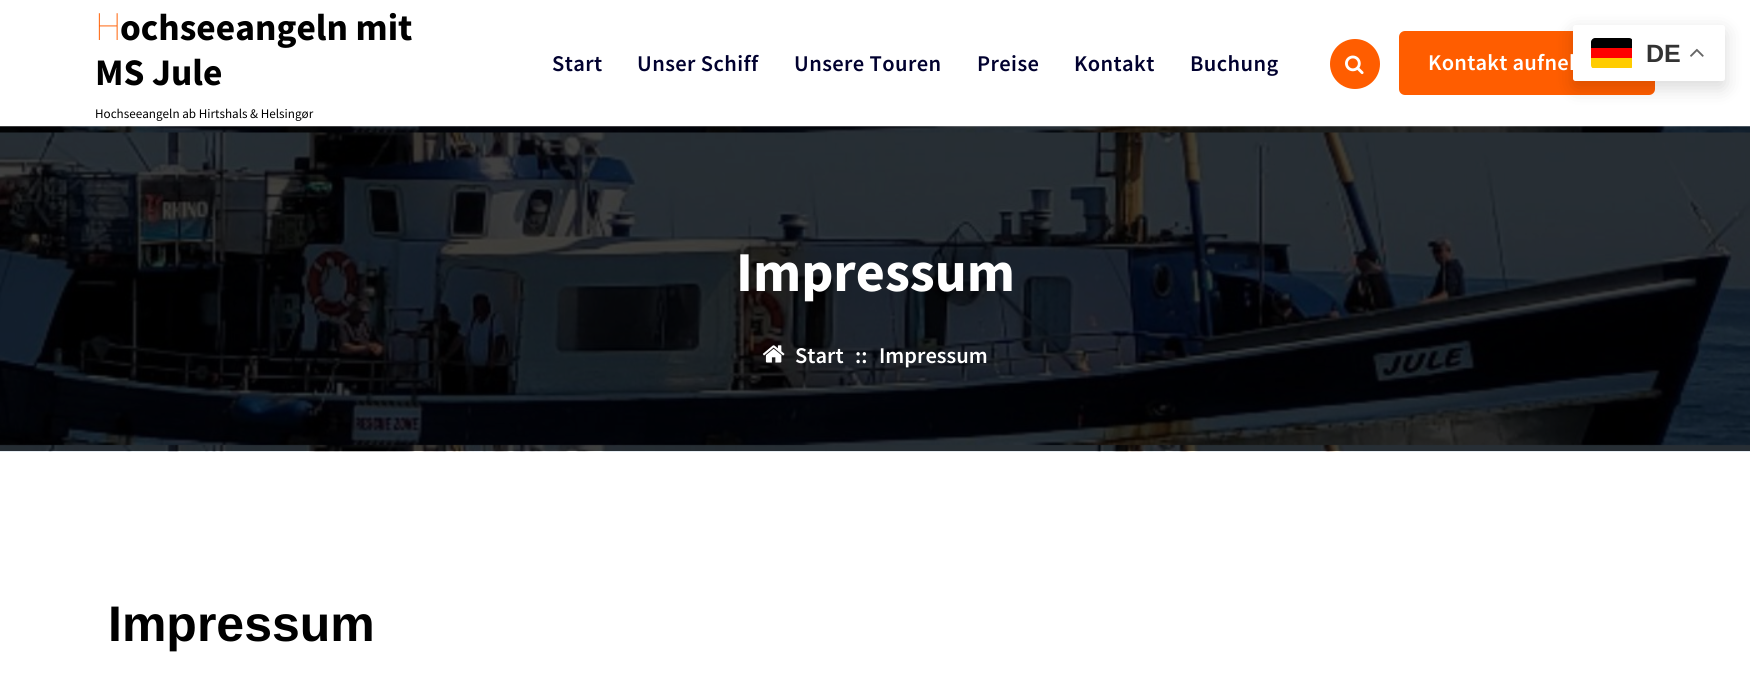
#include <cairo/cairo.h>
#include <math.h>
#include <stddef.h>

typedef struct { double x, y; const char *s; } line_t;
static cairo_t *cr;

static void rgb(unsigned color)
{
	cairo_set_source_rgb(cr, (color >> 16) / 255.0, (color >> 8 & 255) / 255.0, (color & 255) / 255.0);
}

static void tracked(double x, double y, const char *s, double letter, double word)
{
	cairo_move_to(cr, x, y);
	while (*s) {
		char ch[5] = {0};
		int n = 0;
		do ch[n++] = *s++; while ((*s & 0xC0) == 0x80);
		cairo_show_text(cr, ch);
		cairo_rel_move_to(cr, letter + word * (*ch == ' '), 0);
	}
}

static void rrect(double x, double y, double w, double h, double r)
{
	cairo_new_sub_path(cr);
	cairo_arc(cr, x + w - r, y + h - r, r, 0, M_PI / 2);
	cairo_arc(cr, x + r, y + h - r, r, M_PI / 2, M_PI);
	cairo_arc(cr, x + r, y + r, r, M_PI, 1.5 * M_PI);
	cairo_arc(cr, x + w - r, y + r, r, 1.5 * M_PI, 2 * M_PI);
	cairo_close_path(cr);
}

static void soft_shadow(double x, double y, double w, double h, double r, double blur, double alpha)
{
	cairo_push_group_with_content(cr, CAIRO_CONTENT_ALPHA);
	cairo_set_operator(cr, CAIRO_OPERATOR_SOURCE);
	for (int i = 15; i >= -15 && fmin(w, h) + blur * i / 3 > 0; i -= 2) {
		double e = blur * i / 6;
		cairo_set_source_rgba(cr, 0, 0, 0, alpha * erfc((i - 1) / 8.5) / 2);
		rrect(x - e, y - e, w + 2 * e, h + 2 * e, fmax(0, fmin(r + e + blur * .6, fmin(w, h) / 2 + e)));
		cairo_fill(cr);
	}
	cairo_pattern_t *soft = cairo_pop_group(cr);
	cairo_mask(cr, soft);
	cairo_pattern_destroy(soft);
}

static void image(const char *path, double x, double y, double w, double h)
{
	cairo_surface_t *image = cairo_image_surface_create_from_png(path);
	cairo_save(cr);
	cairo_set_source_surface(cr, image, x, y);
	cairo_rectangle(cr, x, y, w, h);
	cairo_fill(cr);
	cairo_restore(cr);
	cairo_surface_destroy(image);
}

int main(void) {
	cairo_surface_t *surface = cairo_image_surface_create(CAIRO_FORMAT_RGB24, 1750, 684);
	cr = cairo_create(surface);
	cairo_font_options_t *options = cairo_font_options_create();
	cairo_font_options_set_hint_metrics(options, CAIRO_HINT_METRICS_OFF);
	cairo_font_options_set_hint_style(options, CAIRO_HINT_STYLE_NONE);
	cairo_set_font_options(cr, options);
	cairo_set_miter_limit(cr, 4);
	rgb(0xffffff);
	cairo_paint(cr);
	rgb(0xff5d00);
	cairo_arc(cr, 1355, 64, 25, 0, 2 * M_PI);
	cairo_fill(cr);
	image("img/1.png", 1345, 55, 19, 20);
	rrect(1400.5, 32.5, 253, 61, 4.5);
	cairo_fill_preserve(cr);
	cairo_set_line_width(cr, 3);
	cairo_stroke(cr);
	rgb(0x000000);
	soft_shadow(1573, 31, 152, 57, 2.5, 9.5, 0.15);
	rgb(0xffffff);
	rrect(1573, 25, 152, 56, 2.5);
	cairo_fill(cr);
	cairo_save(cr);
	rrect(1591, 38, 42, 31, 4);
	cairo_clip(cr);
	rgb(0xffcc00);
	cairo_rectangle(cr, 1591, 58, 41, 10);
	cairo_fill(cr);
	rgb(0x000000);
	cairo_new_path(cr);
	cairo_move_to(cr, 1595, 38);
	cairo_line_to(cr, 1632, 38);
	cairo_line_to(cr, 1632, 48);
	cairo_line_to(cr, 1591, 48);
	cairo_line_to(cr, 1591, 42);
	cairo_curve_to(cr, 1591, 40, 1593, 38, 1595, 38);
	cairo_close_path(cr);
	cairo_fill(cr);
	cairo_restore(cr);
	rgb(0xff0000);
	cairo_rectangle(cr, 1591, 48, 41, 10);
	cairo_fill(cr);
	image("img/2.png", 1690, 48, 14, 9);
	image("img/3.png", 0, 126, 1750, 326);
	image("img/4.png", 762, 345, 23, 18);
	cairo_select_font_face(cr, "Noto Sans Thin", CAIRO_FONT_SLANT_NORMAL, CAIRO_FONT_WEIGHT_NORMAL);
	cairo_set_font_size(cr, 37.5);
	rgb(0xff5d00);
	cairo_move_to(cr, 95, 40);
	cairo_show_text(cr, "H");
	cairo_select_font_face(cr, "Source Sans Pro", CAIRO_FONT_SLANT_NORMAL, CAIRO_FONT_WEIGHT_BOLD);
	rgb(0x000000);
	cairo_move_to(cr, 120, 40);
	cairo_show_text(cr, "ochseeangeln mit");
	cairo_move_to(cr, 95, 85);
	cairo_show_text(cr, "MS Jule");
	cairo_select_font_face(cr, "Source Sans Pro", CAIRO_FONT_SLANT_NORMAL, CAIRO_FONT_WEIGHT_NORMAL);
	cairo_set_font_size(cr, 13.1);
	cairo_move_to(cr, 95, 118);
	cairo_show_text(cr, "Hochseeangeln ab Hirtshals & Helsingør");
	cairo_select_font_face(cr, "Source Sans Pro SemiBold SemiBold", CAIRO_FONT_SLANT_NORMAL, CAIRO_FONT_WEIGHT_NORMAL);
	cairo_set_font_size(cr, 22.5);
	rgb(0x01012f);
	{
		static const line_t items[] = {
			{552, 71, "Start"},
			{637, 71, "Unser Schiff"},
			{794, 71, "Unsere Touren"},
			{977, 71, "Preise"},
			{1074, 71, "Kontakt"},
			{1190, 71, "Buchung"},
		};
		for (size_t i = 0; i < sizeof items / sizeof *items; i++) {
			tracked(items[i].x, items[i].y, items[i].s, 0.4, 0);
		}
	}
	rgb(0xffffff);
	tracked(1428, 70, "Kontakt aufneh", 0.25, 0);
	cairo_select_font_face(cr, "Liberation Sans", CAIRO_FONT_SLANT_NORMAL, CAIRO_FONT_WEIGHT_BOLD);
	cairo_set_font_size(cr, 25);
	rgb(0x333333);
	cairo_move_to(cr, 1646, 62);
	cairo_show_text(cr, "DE");
	cairo_select_font_face(cr, "Source Sans Pro", CAIRO_FONT_SLANT_NORMAL, CAIRO_FONT_WEIGHT_BOLD);
	cairo_set_font_size(cr, 56.25);
	rgb(0xffffff);
	cairo_move_to(cr, 736, 291);
	cairo_show_text(cr, "Impressum");
	cairo_select_font_face(cr, "Source Sans Pro SemiBold SemiBold", CAIRO_FONT_SLANT_NORMAL, CAIRO_FONT_WEIGHT_NORMAL);
	cairo_set_font_size(cr, 22.5);
	{
		static const line_t items[] = {
			{795, 363, "Start"},
			{855, 363, "::"},
			{879, 363, "Impressum"},
		};
		for (size_t i = 0; i < sizeof items / sizeof *items; i++) {
			cairo_move_to(cr, items[i].x, items[i].y);
			cairo_show_text(cr, items[i].s);
		}
	}
	cairo_select_font_face(cr, "Liberation Sans", CAIRO_FONT_SLANT_NORMAL, CAIRO_FONT_WEIGHT_BOLD);
	cairo_set_font_size(cr, 50);
	rgb(0x000000);
	cairo_move_to(cr, 108, 641);
	cairo_show_text(cr, "Impressum");
	cairo_surface_write_to_png(surface, "page.png");
	cairo_font_options_destroy(options);
	cairo_destroy(cr);
	cairo_surface_destroy(surface);
	return 0;
}
